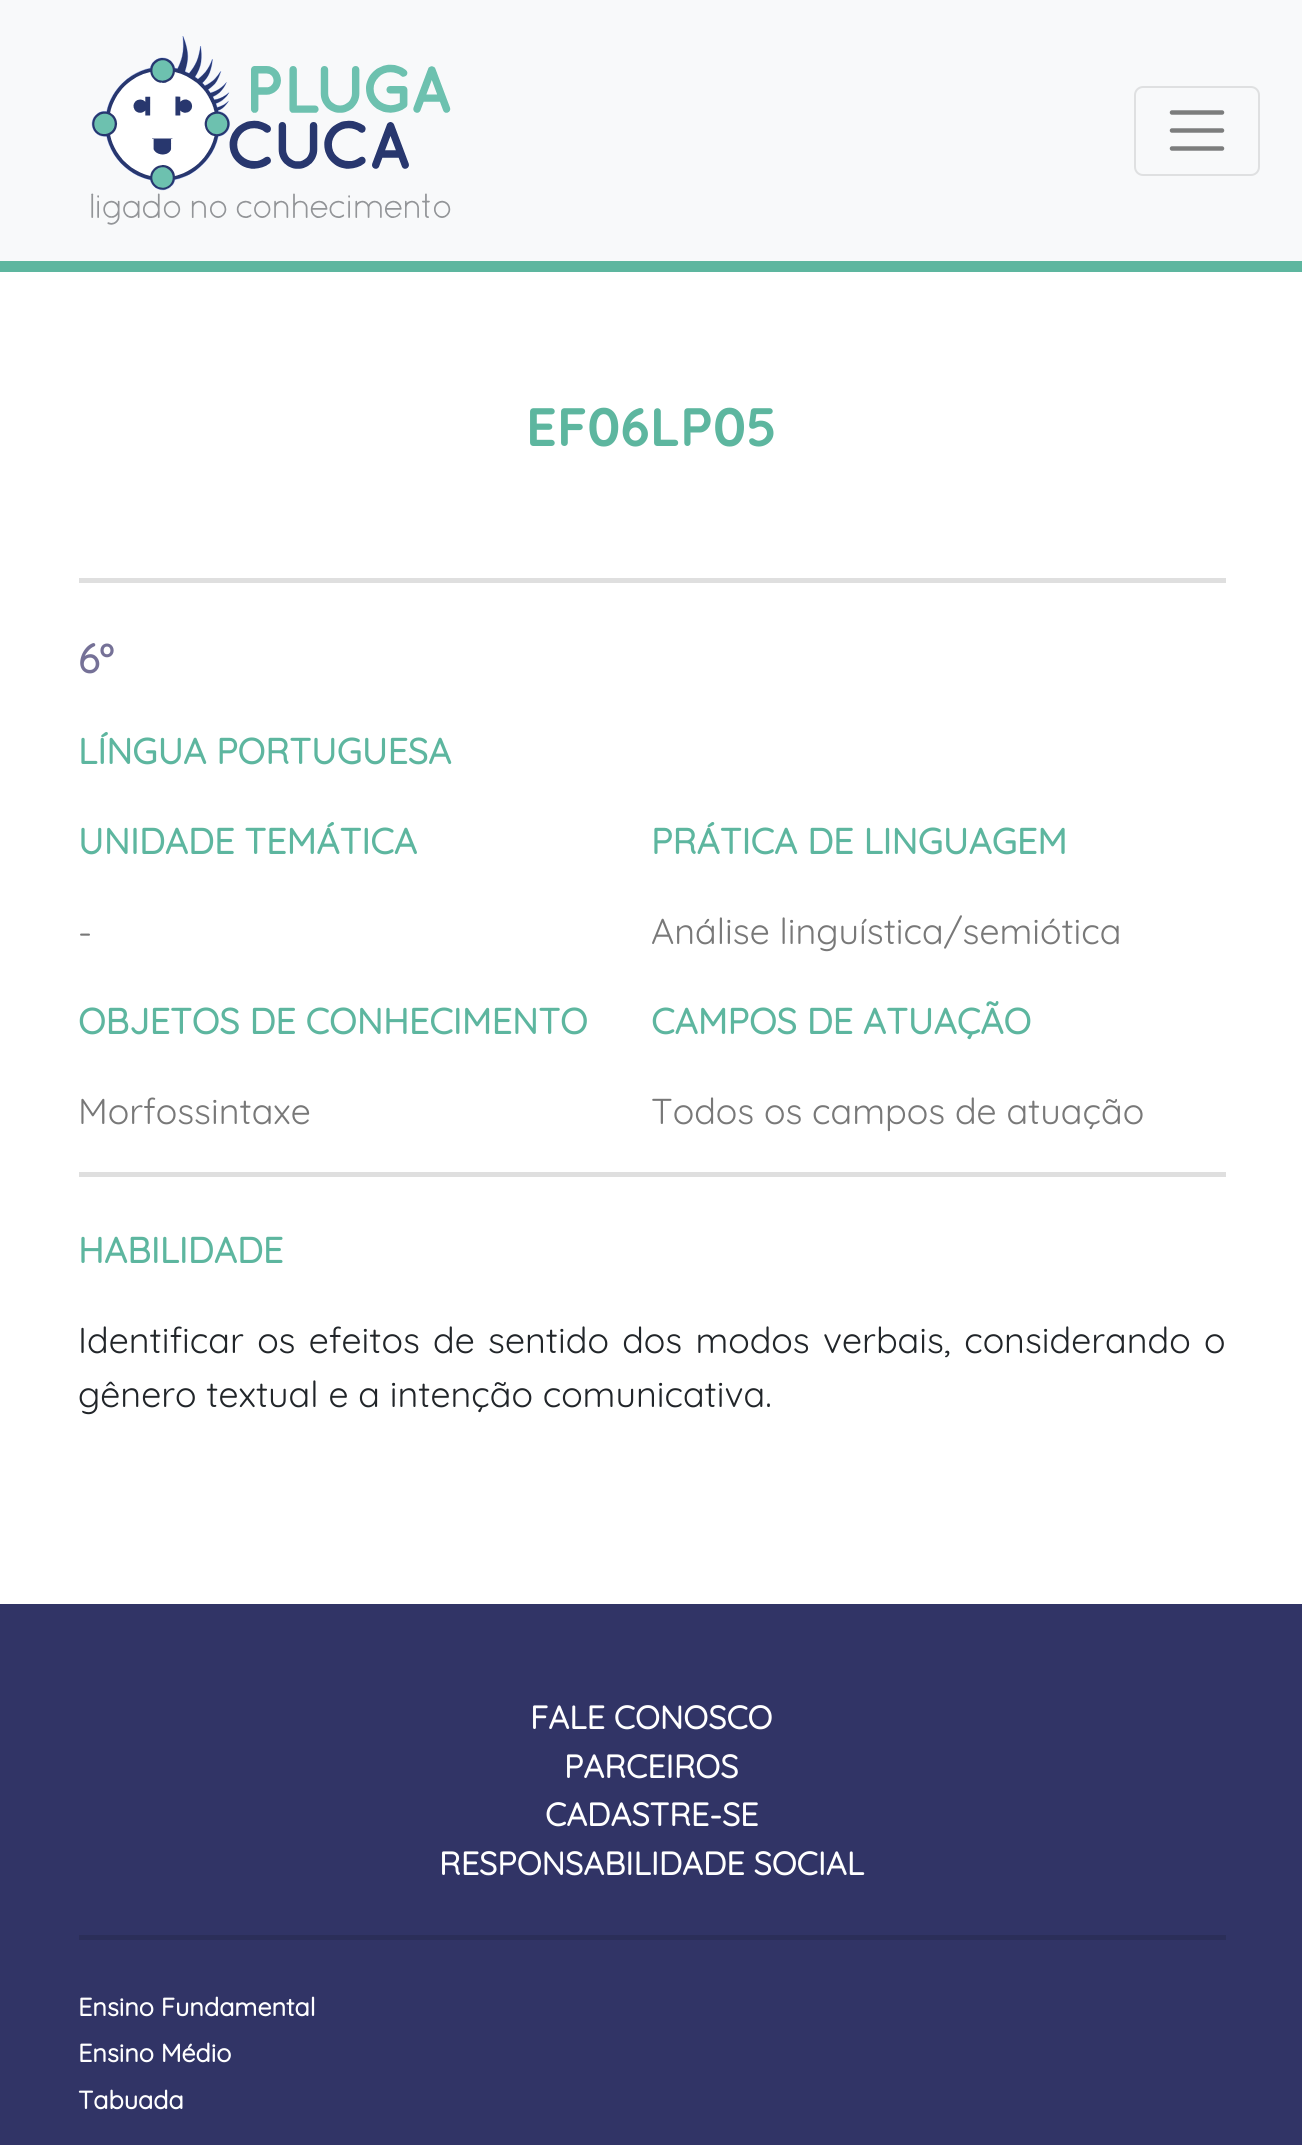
#include <cairo/cairo.h>
#include <math.h>
#include <stddef.h>

typedef struct { double x, y; const char *s; } line_t;
typedef struct { double x, y, w, h; unsigned color; } box_t;
static cairo_t *cr;

static void rgb(unsigned color)
{
	cairo_set_source_rgb(cr, (color >> 16) / 255.0, (color >> 8 & 255) / 255.0, (color & 255) / 255.0);
}

static void tracked(double x, double y, const char *s, double letter, double word)
{
	cairo_move_to(cr, x, y);
	while (*s) {
		char ch[5] = {0};
		int n = 0;
		do ch[n++] = *s++; while ((*s & 0xC0) == 0x80);
		cairo_show_text(cr, ch);
		cairo_rel_move_to(cr, letter + word * (*ch == ' '), 0);
	}
}

static void rrect(double x, double y, double w, double h, double r)
{
	cairo_new_sub_path(cr);
	cairo_arc(cr, x + w - r, y + h - r, r, 0, M_PI / 2);
	cairo_arc(cr, x + r, y + h - r, r, M_PI / 2, M_PI);
	cairo_arc(cr, x + r, y + r, r, M_PI, 1.5 * M_PI);
	cairo_arc(cr, x + w - r, y + r, r, 1.5 * M_PI, 2 * M_PI);
	cairo_close_path(cr);
}

static void image(const char *path, double x, double y, double w, double h)
{
	cairo_surface_t *image = cairo_image_surface_create_from_png(path);
	cairo_save(cr);
	cairo_set_source_surface(cr, image, x, y);
	cairo_rectangle(cr, x, y, w, h);
	cairo_fill(cr);
	cairo_restore(cr);
	cairo_surface_destroy(image);
}

int main(void) {
	cairo_surface_t *surface = cairo_image_surface_create(CAIRO_FORMAT_RGB24, 1302, 2145);
	cr = cairo_create(surface);
	cairo_font_options_t *options = cairo_font_options_create();
	cairo_font_options_set_hint_metrics(options, CAIRO_HINT_METRICS_OFF);
	cairo_font_options_set_hint_style(options, CAIRO_HINT_STYLE_NONE);
	cairo_set_font_options(cr, options);
	cairo_set_miter_limit(cr, 4);
	rgb(0xffffff);
	cairo_paint(cr);
	rgb(0xf8f9fa);
	cairo_rectangle(cr, 0, 0, 1302, 261);
	cairo_fill(cr);
	rgb(0x5db69f);
	cairo_rectangle(cr, 0, 261, 1302, 11);
	cairo_fill(cr);
	image("img/1.png", 91, 36, 360, 189);
	rrect(1135, 87, 124, 88, 8);
	rgb(0xdfe0e1);
	cairo_stroke(cr);
	cairo_new_path(cr);
	cairo_move_to(cr, 1172, 112.5);
	cairo_line_to(cr, 1222, 112.5);
	cairo_move_to(cr, 1172, 130.5);
	cairo_line_to(cr, 1222, 130.5);
	cairo_move_to(cr, 1172, 148.5);
	cairo_line_to(cr, 1222, 148.5);
	rgb(0x7c7d7d);
	cairo_set_line_width(cr, 4.5);
	cairo_set_line_cap(cr, CAIRO_LINE_CAP_ROUND);
	cairo_stroke(cr);
	{
		static const box_t items[] = {
			{79, 578, 1147, 5, 0xdfdfdf},
			{79, 1172, 1147, 5, 0xdfdfdf},
			{0, 1604, 1302, 541, 0x313466},
			{79, 1935, 1147, 5, 0x2b2e59},
		};
		for (size_t i = 0; i < sizeof items / sizeof *items; i++) {
			rgb(items[i].color);
			cairo_rectangle(cr, items[i].x, items[i].y, items[i].w, items[i].h);
			cairo_fill(cr);
		}
	}
	cairo_select_font_face(cr, "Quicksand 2", CAIRO_FONT_SLANT_NORMAL, CAIRO_FONT_WEIGHT_BOLD);
	cairo_set_font_size(cr, 54);
	rgb(0x5db69f);
	cairo_move_to(cr, 526, 446);
	cairo_show_text(cr, "EF06LP05");
	cairo_select_font_face(cr, "Quicksand", CAIRO_FONT_SLANT_NORMAL, CAIRO_FONT_WEIGHT_BOLD);
	cairo_set_font_size(cr, 40);
	rgb(0x757197);
	cairo_move_to(cr, 78, 673);
	cairo_show_text(cr, "6º");
	cairo_set_font_size(cr, 36);
	rgb(0x5db69f);
	cairo_move_to(cr, 78, 764);
	cairo_show_text(cr, "LÍNGUA PORTUGUESA");
	cairo_move_to(cr, 78, 854);
	cairo_show_text(cr, "UNIDADE TEMÁTICA");
	cairo_select_font_face(cr, "Quicksand", CAIRO_FONT_SLANT_NORMAL, CAIRO_FONT_WEIGHT_NORMAL);
	rgb(0x787878);
	cairo_move_to(cr, 78, 944);
	cairo_show_text(cr, "-");
	cairo_select_font_face(cr, "Quicksand", CAIRO_FONT_SLANT_NORMAL, CAIRO_FONT_WEIGHT_BOLD);
	rgb(0x5db69f);
	cairo_move_to(cr, 78, 1034);
	cairo_show_text(cr, "OBJETOS DE CONHECIMENTO");
	cairo_select_font_face(cr, "Quicksand", CAIRO_FONT_SLANT_NORMAL, CAIRO_FONT_WEIGHT_NORMAL);
	rgb(0x787878);
	cairo_move_to(cr, 78, 1124);
	cairo_show_text(cr, "Morfossintaxe");
	cairo_select_font_face(cr, "Quicksand", CAIRO_FONT_SLANT_NORMAL, CAIRO_FONT_WEIGHT_BOLD);
	rgb(0x5db69f);
	cairo_move_to(cr, 651, 854);
	cairo_show_text(cr, "PRÁTICA DE LINGUAGEM");
	cairo_select_font_face(cr, "Quicksand", CAIRO_FONT_SLANT_NORMAL, CAIRO_FONT_WEIGHT_NORMAL);
	rgb(0x787878);
	cairo_move_to(cr, 651, 944);
	cairo_show_text(cr, "Análise linguística/semiótica");
	cairo_select_font_face(cr, "Quicksand", CAIRO_FONT_SLANT_NORMAL, CAIRO_FONT_WEIGHT_BOLD);
	rgb(0x5db69f);
	cairo_move_to(cr, 651, 1034);
	cairo_show_text(cr, "CAMPOS DE ATUAÇÃO");
	cairo_select_font_face(cr, "Quicksand", CAIRO_FONT_SLANT_NORMAL, CAIRO_FONT_WEIGHT_NORMAL);
	rgb(0x787878);
	cairo_move_to(cr, 651, 1124);
	cairo_show_text(cr, "Todos os campos de atuação");
	cairo_select_font_face(cr, "Quicksand", CAIRO_FONT_SLANT_NORMAL, CAIRO_FONT_WEIGHT_BOLD);
	rgb(0x5db69f);
	cairo_move_to(cr, 78, 1263);
	cairo_show_text(cr, "HABILIDADE");
	cairo_select_font_face(cr, "Quicksand", CAIRO_FONT_SLANT_NORMAL, CAIRO_FONT_WEIGHT_NORMAL);
	rgb(0x212529);
	tracked(78, 1353, "Identificar os efeitos de sentido dos modos verbais, considerando o", 0, 3.5);
	cairo_move_to(cr, 78, 1407);
	cairo_show_text(cr, "gênero textual e a intenção comunicativa.");
	cairo_select_font_face(cr, "Quicksand", CAIRO_FONT_SLANT_NORMAL, CAIRO_FONT_WEIGHT_BOLD);
	cairo_set_font_size(cr, 32.4);
	rgb(0xffffff);
	{
		static const line_t items[] = {
			{530, 1729, "FALE CONOSCO"},
			{564, 1778, "PARCEIROS"},
			{545, 1826, "CADASTRE-SE"},
			{439, 1875, "RESPONSABILIDADE SOCIAL"},
		};
		for (size_t i = 0; i < sizeof items / sizeof *items; i++) {
			cairo_move_to(cr, items[i].x, items[i].y);
			cairo_show_text(cr, items[i].s);
		}
	}
	cairo_set_font_size(cr, 25.25);
	{
		static const line_t items[] = {
			{78, 2016, "Ensino Fundamental"},
			{78, 2062, "Ensino Médio"},
			{78, 2109, "Tabuada"},
		};
		for (size_t i = 0; i < sizeof items / sizeof *items; i++) {
			cairo_move_to(cr, items[i].x, items[i].y);
			cairo_show_text(cr, items[i].s);
		}
	}
	cairo_surface_write_to_png(surface, "page.png");
	cairo_font_options_destroy(options);
	cairo_destroy(cr);
	cairo_surface_destroy(surface);
	return 0;
}
